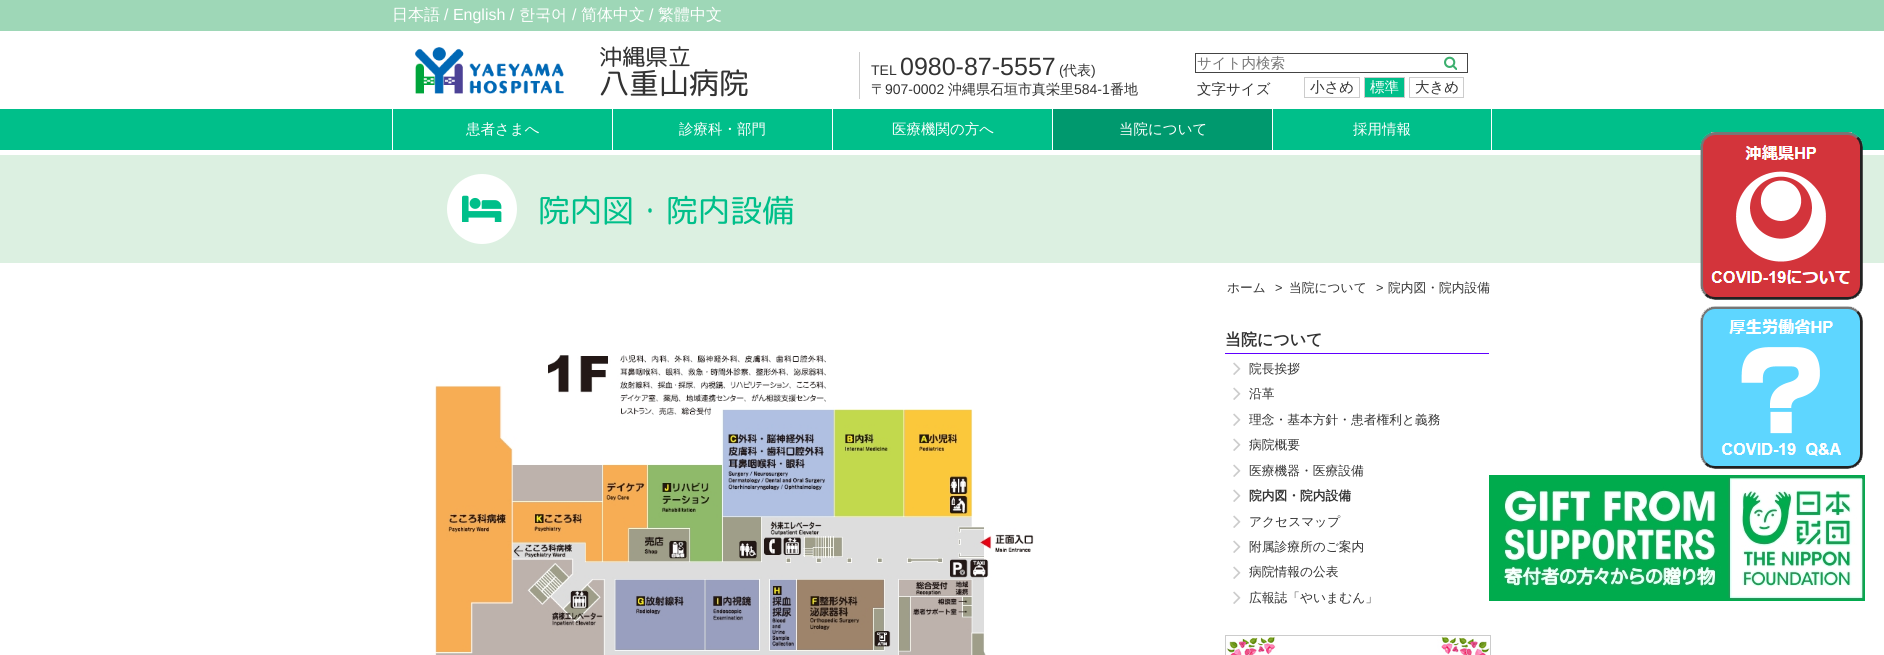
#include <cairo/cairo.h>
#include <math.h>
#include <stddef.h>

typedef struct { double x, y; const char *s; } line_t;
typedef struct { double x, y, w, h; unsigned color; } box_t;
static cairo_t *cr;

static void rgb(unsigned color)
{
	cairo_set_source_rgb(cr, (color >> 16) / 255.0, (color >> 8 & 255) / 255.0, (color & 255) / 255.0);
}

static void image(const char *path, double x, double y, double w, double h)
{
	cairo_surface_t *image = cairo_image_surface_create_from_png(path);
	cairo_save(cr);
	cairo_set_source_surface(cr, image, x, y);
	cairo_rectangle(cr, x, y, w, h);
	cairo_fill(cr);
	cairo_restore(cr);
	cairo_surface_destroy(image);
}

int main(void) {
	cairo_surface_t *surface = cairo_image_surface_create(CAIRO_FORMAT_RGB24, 1884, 655);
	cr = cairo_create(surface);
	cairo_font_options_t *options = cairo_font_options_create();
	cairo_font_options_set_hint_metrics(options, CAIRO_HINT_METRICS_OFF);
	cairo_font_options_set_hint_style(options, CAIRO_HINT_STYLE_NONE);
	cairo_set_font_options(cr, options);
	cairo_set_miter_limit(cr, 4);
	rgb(0xffffff);
	cairo_paint(cr);
	rgb(0x9ed7b7);
	cairo_rectangle(cr, 0, 0, 1884, 31);
	cairo_fill(cr);
	image("img/1.png", 415, 47, 149, 47);
	rgb(0xcccccc);
	cairo_rectangle(cr, 859, 52, 1, 47);
	cairo_fill(cr);
	cairo_rectangle(cr, 1195.5, 53.5, 272, 19);
	rgb(0x444444);
	cairo_set_line_width(cr, 1);
	cairo_stroke(cr);
	image("img/2.png", 1444, 56, 13, 14);
	cairo_rectangle(cr, 1304.5, 77.5, 55, 20);
	rgb(0xcccccc);
	cairo_stroke(cr);
	rgb(0x00bf8a);
	cairo_rectangle(cr, 1364.5, 77.5, 40, 20);
	cairo_fill_preserve(cr);
	rgb(0xcccccc);
	cairo_stroke(cr);
	cairo_rectangle(cr, 1409.5, 77.5, 54, 20);
	cairo_stroke(cr);
	{
		static const box_t items[] = {
			{0, 109, 1884, 41, 0x00bf8a},
			{392, 109, 1, 41, 0xffffff},
			{612, 109, 1, 41, 0xffffff},
			{832, 109, 1, 41, 0xffffff},
			{1053, 109, 219, 41, 0x00996e},
			{1052, 109, 1, 41, 0xffffff},
			{1491, 109, 1, 41, 0xffffff},
			{1272, 109, 1, 41, 0xffffff},
			{0, 155, 1884, 108, 0xdcf0e1},
		};
		for (size_t i = 0; i < sizeof items / sizeof *items; i++) {
			rgb(items[i].color);
			cairo_rectangle(cr, items[i].x, items[i].y, items[i].w, items[i].h);
			cairo_fill(cr);
		}
	}
	rgb(0xffffff);
	cairo_arc(cr, 482, 209, 35, 0, 2 * M_PI);
	cairo_fill(cr);
	image("img/3.png", 462, 195, 40, 27);
	image("img/4.png", 435, 355, 599, 300);
	rgb(0x5f00ff);
	cairo_rectangle(cr, 1225, 353, 264, 1);
	cairo_fill(cr);
	image("img/5.png", 1233, 362, 8, 13);
	image("img/5.png", 1233, 387, 8, 13);
	image("img/5.png", 1233, 413, 8, 13);
	image("img/5.png", 1233, 438, 8, 13);
	image("img/5.png", 1233, 464, 8, 13);
	image("img/5.png", 1233, 489, 8, 13);
	image("img/5.png", 1233, 515, 8, 13);
	image("img/5.png", 1233, 540, 8, 13);
	image("img/5.png", 1233, 566, 8, 13);
	image("img/5.png", 1233, 591, 8, 13);
	cairo_rectangle(cr, 1225.5, 635.5, 265, 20);
	rgb(0xcccccc);
	cairo_stroke(cr);
	image("img/6.png", 1226, 636, 264, 19);
	image("img/7.png", 1700, 132, 163, 168);
	image("img/8.png", 1700, 306, 163, 163);
	image("img/9.png", 1489, 475, 376, 126);
	cairo_select_font_face(cr, "WenQuanYi Zen Hei Medium", CAIRO_FONT_SLANT_NORMAL, CAIRO_FONT_WEIGHT_NORMAL);
	cairo_set_font_size(cr, 16);
	rgb(0xffffff);
	cairo_move_to(cr, 392, 20);
	cairo_show_text(cr, "日本語");
	cairo_select_font_face(cr, "Liberation Sans", CAIRO_FONT_SLANT_NORMAL, CAIRO_FONT_WEIGHT_NORMAL);
	cairo_move_to(cr, 444, 20);
	cairo_show_text(cr, "/ English /");
	cairo_select_font_face(cr, "WenQuanYi Zen Hei Medium", CAIRO_FONT_SLANT_NORMAL, CAIRO_FONT_WEIGHT_NORMAL);
	cairo_move_to(cr, 519, 20);
	cairo_show_text(cr, "한국어");
	cairo_select_font_face(cr, "Liberation Sans", CAIRO_FONT_SLANT_NORMAL, CAIRO_FONT_WEIGHT_NORMAL);
	cairo_move_to(cr, 572, 20);
	cairo_show_text(cr, "/");
	cairo_select_font_face(cr, "WenQuanYi Zen Hei Medium", CAIRO_FONT_SLANT_NORMAL, CAIRO_FONT_WEIGHT_NORMAL);
	cairo_move_to(cr, 581, 20);
	cairo_show_text(cr, "简体中文");
	cairo_select_font_face(cr, "Liberation Sans", CAIRO_FONT_SLANT_NORMAL, CAIRO_FONT_WEIGHT_NORMAL);
	cairo_move_to(cr, 649, 20);
	cairo_show_text(cr, "/");
	cairo_select_font_face(cr, "WenQuanYi Zen Hei Medium", CAIRO_FONT_SLANT_NORMAL, CAIRO_FONT_WEIGHT_NORMAL);
	cairo_move_to(cr, 658, 20);
	cairo_show_text(cr, "繁體中文");
	cairo_select_font_face(cr, "Rounded Mplus 1c", CAIRO_FONT_SLANT_NORMAL, CAIRO_FONT_WEIGHT_NORMAL);
	cairo_set_font_size(cr, 23);
	rgb(0x333333);
	cairo_move_to(cr, 599, 65);
	cairo_show_text(cr, "沖縄県立");
	cairo_set_font_size(cr, 30);
	cairo_move_to(cr, 599, 94);
	cairo_show_text(cr, "八重山病院");
	cairo_select_font_face(cr, "Liberation Sans", CAIRO_FONT_SLANT_NORMAL, CAIRO_FONT_WEIGHT_NORMAL);
	cairo_set_font_size(cr, 14);
	cairo_move_to(cr, 871, 75);
	cairo_show_text(cr, "TEL");
	cairo_set_font_size(cr, 25);
	cairo_move_to(cr, 900, 75);
	cairo_show_text(cr, "0980-87-5557");
	cairo_set_font_size(cr, 14);
	cairo_move_to(cr, 1059, 75);
	cairo_show_text(cr, "(");
	cairo_select_font_face(cr, "WenQuanYi Zen Hei Medium", CAIRO_FONT_SLANT_NORMAL, CAIRO_FONT_WEIGHT_NORMAL);
	cairo_move_to(cr, 1063, 75);
	cairo_show_text(cr, "代表");
	cairo_select_font_face(cr, "Liberation Sans", CAIRO_FONT_SLANT_NORMAL, CAIRO_FONT_WEIGHT_NORMAL);
	cairo_move_to(cr, 1091, 75);
	cairo_show_text(cr, ")");
	cairo_select_font_face(cr, "WenQuanYi Zen Hei Medium", CAIRO_FONT_SLANT_NORMAL, CAIRO_FONT_WEIGHT_NORMAL);
	cairo_move_to(cr, 871, 94);
	cairo_show_text(cr, "〒");
	cairo_select_font_face(cr, "Liberation Sans", CAIRO_FONT_SLANT_NORMAL, CAIRO_FONT_WEIGHT_NORMAL);
	cairo_move_to(cr, 885, 94);
	cairo_show_text(cr, "907-0002");
	cairo_select_font_face(cr, "WenQuanYi Zen Hei Medium", CAIRO_FONT_SLANT_NORMAL, CAIRO_FONT_WEIGHT_NORMAL);
	cairo_move_to(cr, 948, 94);
	cairo_show_text(cr, "沖縄県石垣市真栄里");
	cairo_select_font_face(cr, "Liberation Sans", CAIRO_FONT_SLANT_NORMAL, CAIRO_FONT_WEIGHT_NORMAL);
	cairo_move_to(cr, 1074, 94);
	cairo_show_text(cr, "584-1");
	cairo_select_font_face(cr, "WenQuanYi Zen Hei Medium", CAIRO_FONT_SLANT_NORMAL, CAIRO_FONT_WEIGHT_NORMAL);
	cairo_move_to(cr, 1110, 94);
	cairo_show_text(cr, "番地");
	cairo_set_font_size(cr, 14.5);
	rgb(0x757575);
	cairo_move_to(cr, 1197, 68);
	cairo_show_text(cr, "サイト内検索");
	rgb(0x333333);
	cairo_move_to(cr, 1197, 94);
	cairo_show_text(cr, "文字サイズ");
	cairo_move_to(cr, 1310, 92);
	cairo_show_text(cr, "小さめ");
	rgb(0xffffff);
	cairo_move_to(cr, 1370, 92);
	cairo_show_text(cr, "標準");
	rgb(0x333333);
	cairo_move_to(cr, 1415, 92);
	cairo_show_text(cr, "大きめ");
	rgb(0xffffff);
	{
		static const line_t items[] = {
			{466, 134, "患者さまへ"},
			{679, 134, "診療科・部門"},
			{892, 134, "医療機関の方へ"},
			{1119, 134, "当院について"},
			{1353, 134, "採用情報"},
		};
		for (size_t i = 0; i < sizeof items / sizeof *items; i++) {
			cairo_move_to(cr, items[i].x, items[i].y);
			cairo_show_text(cr, items[i].s);
		}
	}
	cairo_select_font_face(cr, "Rounded Mplus 1c", CAIRO_FONT_SLANT_NORMAL, CAIRO_FONT_WEIGHT_NORMAL);
	cairo_set_font_size(cr, 32);
	rgb(0x00bf8a);
	cairo_move_to(cr, 538, 222);
	cairo_show_text(cr, "院内図・院内設備");
	cairo_select_font_face(cr, "WenQuanYi Zen Hei Medium", CAIRO_FONT_SLANT_NORMAL, CAIRO_FONT_WEIGHT_NORMAL);
	cairo_set_font_size(cr, 12.75);
	rgb(0x333333);
	cairo_move_to(cr, 1227, 292);
	cairo_show_text(cr, "ホーム");
	cairo_select_font_face(cr, "Liberation Sans", CAIRO_FONT_SLANT_NORMAL, CAIRO_FONT_WEIGHT_NORMAL);
	cairo_move_to(cr, 1275, 292);
	cairo_show_text(cr, ">");
	cairo_select_font_face(cr, "WenQuanYi Zen Hei Medium", CAIRO_FONT_SLANT_NORMAL, CAIRO_FONT_WEIGHT_NORMAL);
	cairo_move_to(cr, 1289, 292);
	cairo_show_text(cr, "当院について");
	cairo_select_font_face(cr, "Liberation Sans", CAIRO_FONT_SLANT_NORMAL, CAIRO_FONT_WEIGHT_NORMAL);
	cairo_move_to(cr, 1376, 292);
	cairo_show_text(cr, ">");
	cairo_select_font_face(cr, "WenQuanYi Zen Hei Medium", CAIRO_FONT_SLANT_NORMAL, CAIRO_FONT_WEIGHT_NORMAL);
	cairo_move_to(cr, 1388, 292);
	cairo_show_text(cr, "院内図・院内設備");
	cairo_select_font_face(cr, "WenQuanYi Zen Hei", CAIRO_FONT_SLANT_NORMAL, CAIRO_FONT_WEIGHT_BOLD);
	cairo_set_font_size(cr, 16);
	cairo_move_to(cr, 1225, 345);
	cairo_show_text(cr, "当院について");
	cairo_select_font_face(cr, "WenQuanYi Zen Hei Medium", CAIRO_FONT_SLANT_NORMAL, CAIRO_FONT_WEIGHT_NORMAL);
	cairo_set_font_size(cr, 12.75);
	{
		static const line_t items[] = {
			{1249, 373, "院長挨拶"},
			{1249, 398, "沿革"},
			{1249, 424, "理念・基本方針・患者権利と義務"},
			{1249, 449, "病院概要"},
			{1249, 475, "医療機器・医療設備"},
		};
		for (size_t i = 0; i < sizeof items / sizeof *items; i++) {
			cairo_move_to(cr, items[i].x, items[i].y);
			cairo_show_text(cr, items[i].s);
		}
	}
	cairo_select_font_face(cr, "WenQuanYi Zen Hei", CAIRO_FONT_SLANT_NORMAL, CAIRO_FONT_WEIGHT_BOLD);
	cairo_move_to(cr, 1249, 500);
	cairo_show_text(cr, "院内図・院内設備");
	cairo_select_font_face(cr, "WenQuanYi Zen Hei Medium", CAIRO_FONT_SLANT_NORMAL, CAIRO_FONT_WEIGHT_NORMAL);
	{
		static const line_t items[] = {
			{1249, 526, "アクセスマップ"},
			{1249, 551, "附属診療所のご案内"},
			{1249, 576, "病院情報の公表"},
			{1249, 602, "広報誌「やいまむん」"},
		};
		for (size_t i = 0; i < sizeof items / sizeof *items; i++) {
			cairo_move_to(cr, items[i].x, items[i].y);
			cairo_show_text(cr, items[i].s);
		}
	}
	cairo_surface_write_to_png(surface, "page.png");
	cairo_font_options_destroy(options);
	cairo_destroy(cr);
	cairo_surface_destroy(surface);
	return 0;
}
